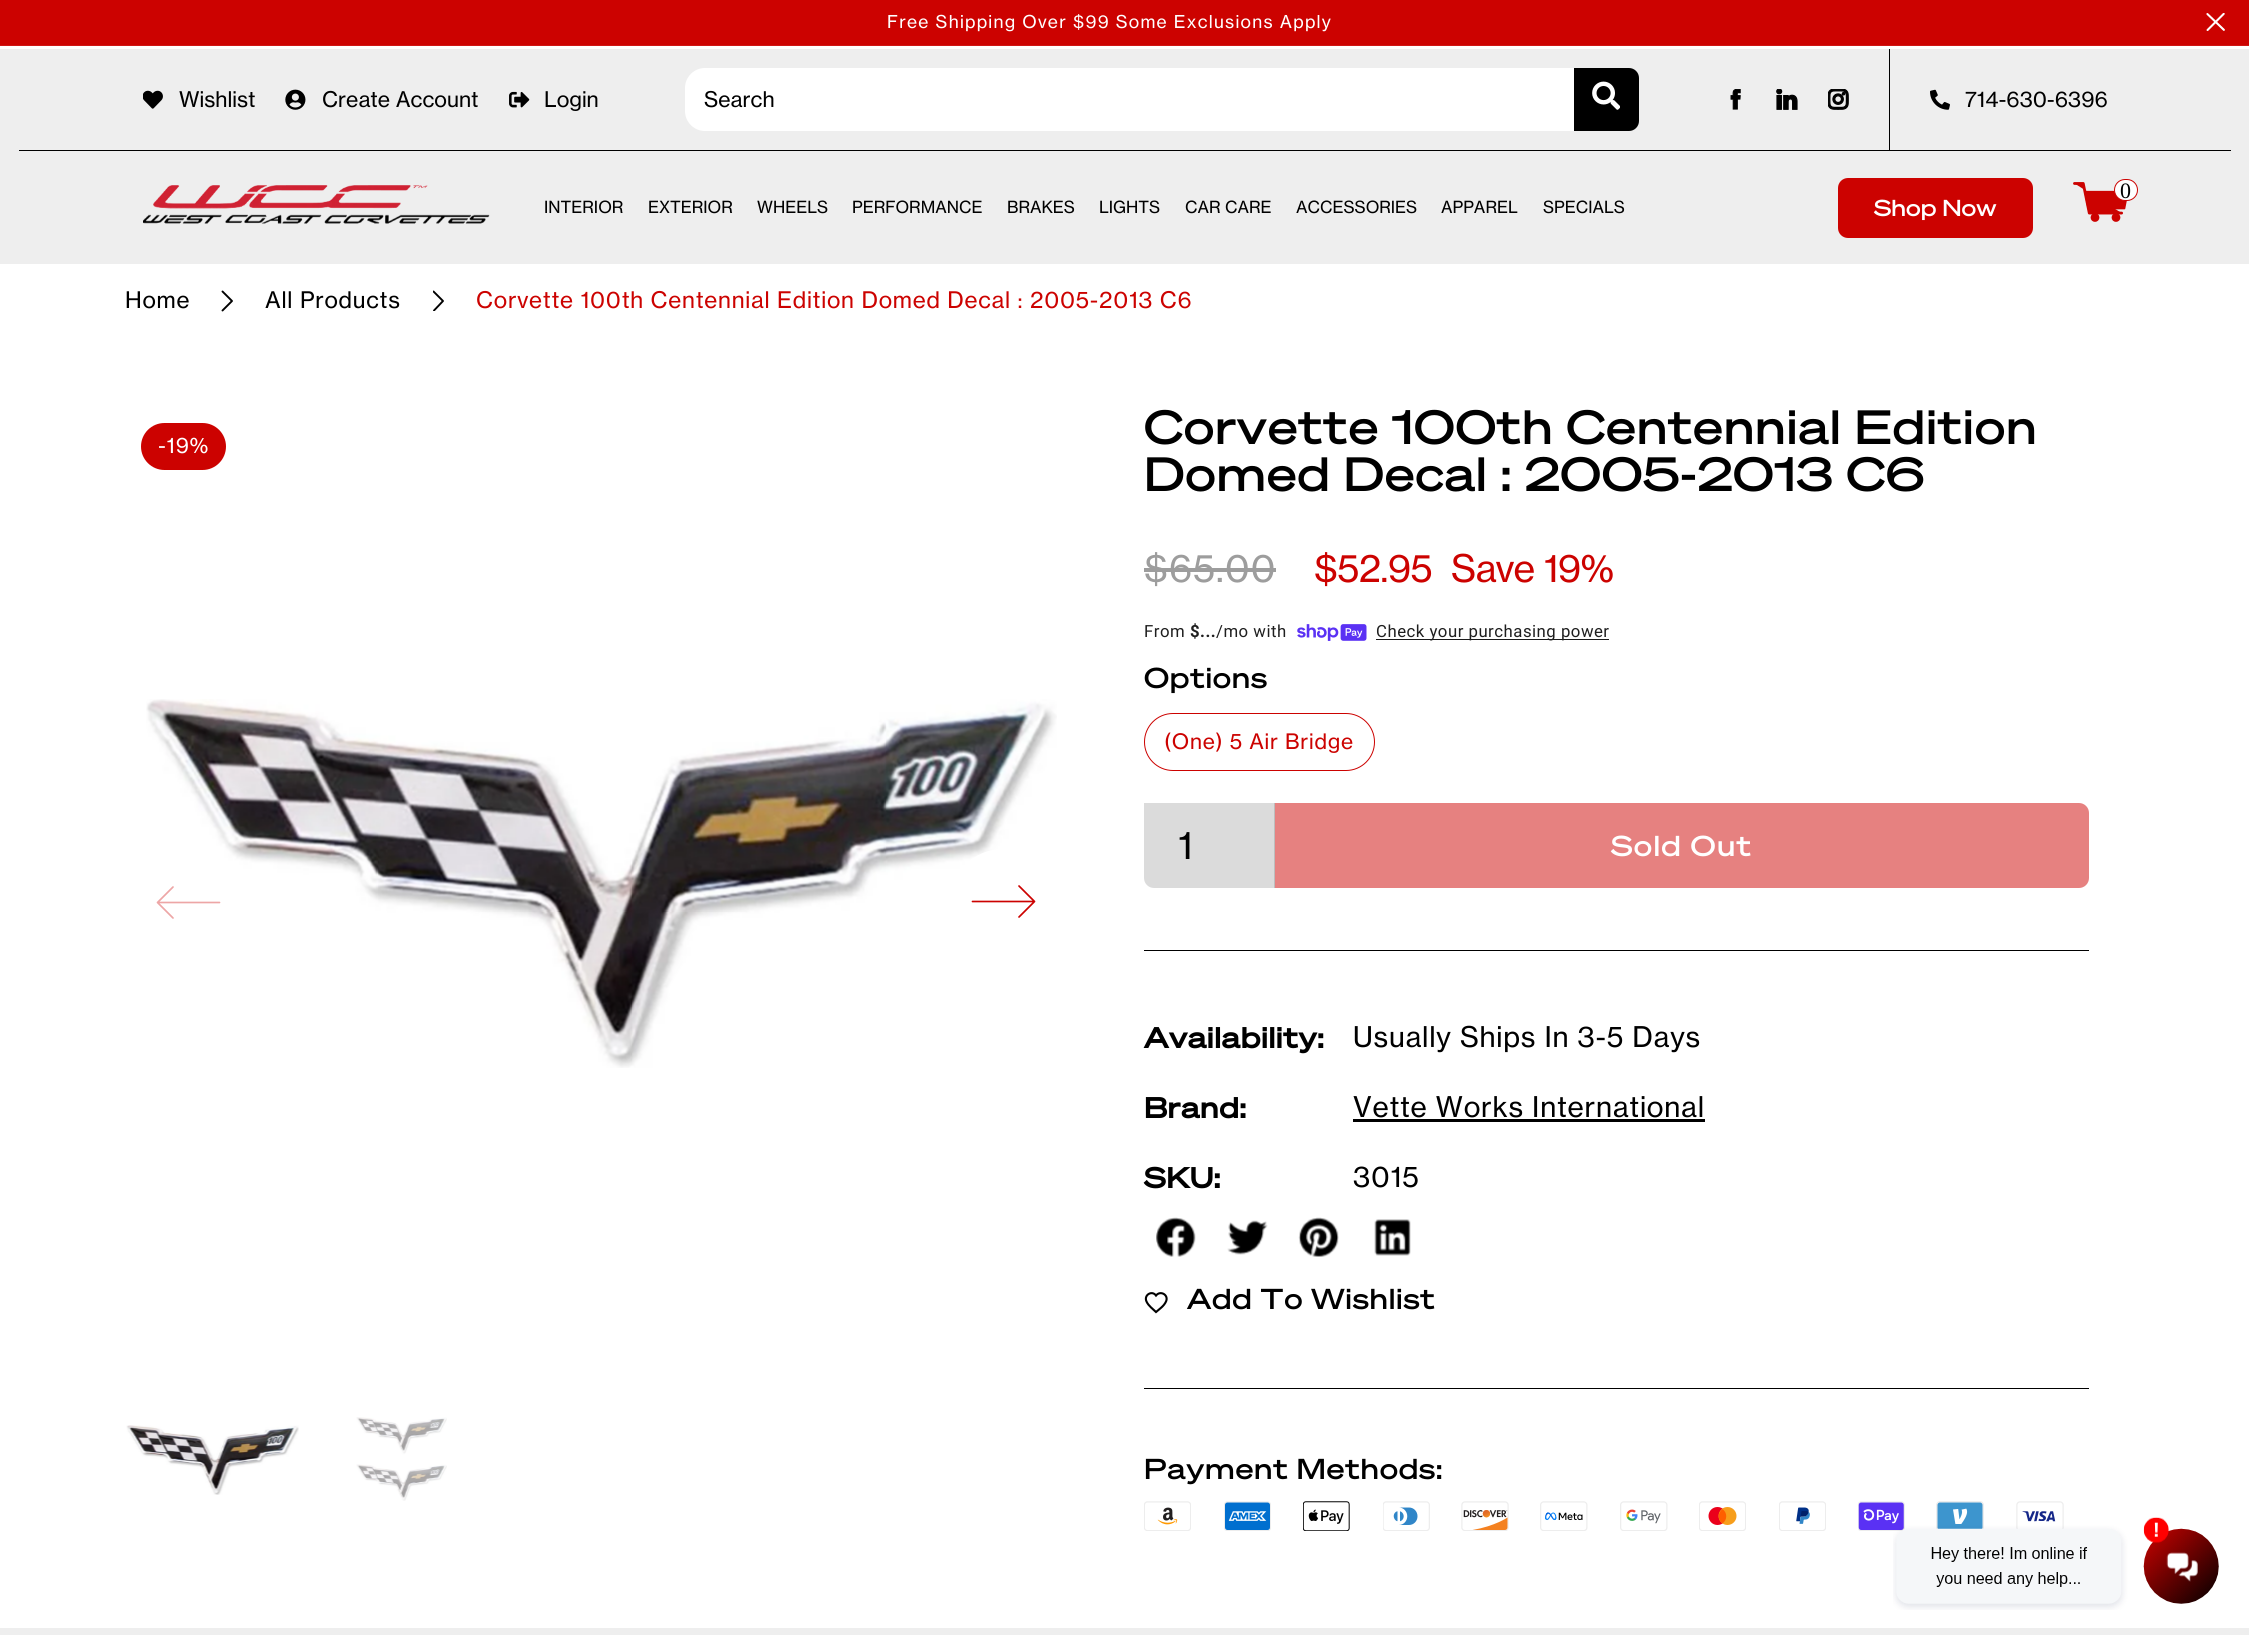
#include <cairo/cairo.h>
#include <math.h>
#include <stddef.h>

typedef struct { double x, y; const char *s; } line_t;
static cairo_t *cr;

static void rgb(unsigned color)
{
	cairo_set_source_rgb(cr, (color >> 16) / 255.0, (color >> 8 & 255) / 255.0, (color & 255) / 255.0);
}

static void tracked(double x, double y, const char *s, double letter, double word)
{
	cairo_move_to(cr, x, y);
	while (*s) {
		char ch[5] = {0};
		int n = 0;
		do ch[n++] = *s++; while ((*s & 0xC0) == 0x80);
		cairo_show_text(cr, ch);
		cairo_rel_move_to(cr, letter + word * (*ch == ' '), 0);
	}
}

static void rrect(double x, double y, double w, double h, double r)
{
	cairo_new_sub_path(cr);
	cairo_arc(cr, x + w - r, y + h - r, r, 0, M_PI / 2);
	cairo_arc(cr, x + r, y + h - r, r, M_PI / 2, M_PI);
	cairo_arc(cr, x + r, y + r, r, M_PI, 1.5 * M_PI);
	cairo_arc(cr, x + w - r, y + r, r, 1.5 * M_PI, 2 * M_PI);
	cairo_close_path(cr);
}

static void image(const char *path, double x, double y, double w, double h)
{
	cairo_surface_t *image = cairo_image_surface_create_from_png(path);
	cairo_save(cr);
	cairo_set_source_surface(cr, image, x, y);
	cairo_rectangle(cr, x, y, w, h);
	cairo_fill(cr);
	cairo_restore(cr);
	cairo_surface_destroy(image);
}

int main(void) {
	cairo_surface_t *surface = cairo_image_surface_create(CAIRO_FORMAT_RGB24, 2249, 1635);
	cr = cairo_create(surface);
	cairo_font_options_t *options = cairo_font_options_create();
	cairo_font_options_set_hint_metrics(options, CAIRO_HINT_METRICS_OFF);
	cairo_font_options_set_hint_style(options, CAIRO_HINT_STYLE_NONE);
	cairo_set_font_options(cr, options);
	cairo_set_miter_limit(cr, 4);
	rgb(0xffffff);
	cairo_paint(cr);
	rgb(0xcc0200);
	cairo_rectangle(cr, 0, 0, 2249, 45);
	cairo_fill(cr);
	rgb(0xd01614);
	cairo_rectangle(cr, 0, 45, 2249, 1);
	cairo_fill(cr);
	image("img/1.png", 2206, 13, 19, 18);
	rgb(0xeeeeee);
	cairo_rectangle(cr, 0, 49, 2249, 215);
	cairo_fill(cr);
	image("img/2.png", 143, 90, 20, 19);
	image("img/3.png", 285, 89, 21, 21);
	image("img/4.png", 509, 91, 21, 17);
	rgb(0xffffff);
	cairo_new_path(cr);
	cairo_move_to(cr, 705, 68);
	cairo_line_to(cr, 1574, 68);
	cairo_line_to(cr, 1574, 131);
	cairo_line_to(cr, 705, 131);
	cairo_curve_to(cr, 694, 131, 685, 122, 685, 111);
	cairo_line_to(cr, 685, 88);
	cairo_curve_to(cr, 685, 77, 694, 68, 705, 68);
	cairo_close_path(cr);
	cairo_fill(cr);
	rgb(0x000000);
	cairo_new_path(cr);
	cairo_move_to(cr, 1574, 68);
	cairo_line_to(cr, 1629, 68);
	cairo_curve_to(cr, 1634.5, 68, 1639, 72.5, 1639, 78);
	cairo_line_to(cr, 1639, 121);
	cairo_curve_to(cr, 1639, 126.5, 1634.5, 131, 1629, 131);
	cairo_line_to(cr, 1574, 131);
	cairo_close_path(cr);
	cairo_fill(cr);
	image("img/5.png", 1592, 81, 28, 29);
	image("img/6.png", 1730, 89, 11, 21);
	image("img/7.png", 1776, 89, 22, 21);
	image("img/8.png", 1828, 89, 21, 21);
	cairo_rectangle(cr, 1889, 49, 1, 101);
	cairo_fill(cr);
	image("img/9.png", 1930, 89, 20, 21);
	cairo_rectangle(cr, 19, 150, 2212, 1);
	cairo_fill(cr);
	image("img/10.png", 143, 185, 347, 39);
	rgb(0xcc0200);
	rrect(1838, 178, 195, 60, 10);
	cairo_fill(cr);
	image("img/11.png", 2073, 182, 54, 40);
	rgb(0xffffff);
	rrect(2114.5, 179.5, 23, 21, 10.5);
	cairo_fill_preserve(cr);
	rgb(0xcc0200);
	cairo_set_line_width(cr, 1);
	cairo_stroke(cr);
	cairo_new_path(cr);
	cairo_move_to(cr, 222.5, 291.5);
	cairo_line_to(cr, 232, 301);
	cairo_line_to(cr, 222.5, 310.5);
	rgb(0x000000);
	cairo_set_line_width(cr, 1.9);
	cairo_set_line_cap(cr, CAIRO_LINE_CAP_ROUND);
	cairo_set_line_join(cr, CAIRO_LINE_JOIN_ROUND);
	cairo_stroke(cr);
	cairo_save(cr);
	cairo_rectangle(cr, 433, 290, 12, 21);
	cairo_clip(cr);
	cairo_new_path(cr);
	cairo_move_to(cr, 433.5, 291.5);
	cairo_line_to(cr, 443, 301);
	cairo_line_to(cr, 434, 310.5);
	cairo_stroke(cr);
	cairo_restore(cr);
	rgb(0xcc0200);
	rrect(141, 423, 85, 47, 23.5);
	cairo_fill(cr);
	image("img/12.png", 146, 699, 911, 369);
	cairo_new_path(cr);
	cairo_move_to(cr, 173, 918);
	cairo_line_to(cr, 157.5, 902.5);
	cairo_line_to(cr, 173, 887);
	cairo_move_to(cr, 158.5, 902.5);
	cairo_line_to(cr, 219.5, 902.5);
	rgb(0xeda6a6);
	cairo_set_line_width(cr, 1.7);
	cairo_stroke(cr);
	rgb(0xffffff);
	rrect(950, 849, 108, 106, 53);
	cairo_fill(cr);
	cairo_new_path(cr);
	cairo_move_to(cr, 1019, 886);
	cairo_line_to(cr, 1034.5, 901.5);
	cairo_line_to(cr, 1019, 917);
	cairo_move_to(cr, 1033, 901.5);
	cairo_line_to(cr, 972.5, 901.5);
	rgb(0xcc0200);
	cairo_stroke(cr);
	image("img/13.png", 126, 1425, 173, 70);
	image("img/14.png", 356, 1417, 91, 84);
	rgb(0x9d9d9d);
	cairo_rectangle(cr, 1144, 568, 132, 4);
	cairo_fill(cr);
	image("img/15.png", 1297, 624, 70, 17);
	rgb(0x1a1a1a);
	cairo_rectangle(cr, 1376, 639, 233, 1);
	cairo_fill(cr);
	rrect(1144.5, 713.5, 230, 57, 28.5);
	rgb(0xcc0200);
	cairo_set_line_width(cr, 1);
	cairo_set_line_cap(cr, CAIRO_LINE_CAP_BUTT);
	cairo_set_line_join(cr, CAIRO_LINE_JOIN_MITER);
	cairo_stroke(cr);
	rgb(0x000000);
	cairo_rectangle(cr, 1144, 950, 945, 1);
	cairo_fill(cr);
	rgb(0xdbdbdb);
	cairo_new_path(cr);
	cairo_move_to(cr, 1144, 803);
	cairo_line_to(cr, 1275, 803);
	cairo_line_to(cr, 1275, 888);
	cairo_line_to(cr, 1154, 888);
	cairo_curve_to(cr, 1148.5, 888, 1144, 883.5, 1144, 878);
	cairo_close_path(cr);
	cairo_fill(cr);
	rgb(0xbdbdbd);
	cairo_rectangle(cr, 1274, 803, 1, 85);
	cairo_fill(cr);
	rgb(0xe68180);
	cairo_new_path(cr);
	cairo_move_to(cr, 1275, 803);
	cairo_line_to(cr, 2079, 803);
	cairo_curve_to(cr, 2084.5, 803, 2089, 807.5, 2089, 813);
	cairo_line_to(cr, 2089, 878);
	cairo_curve_to(cr, 2089, 883.5, 2084.5, 888, 2079, 888);
	cairo_line_to(cr, 1275, 888);
	cairo_close_path(cr);
	cairo_fill(cr);
	rgb(0x000000);
	cairo_rectangle(cr, 1353, 1119, 352, 3);
	cairo_fill(cr);
	image("img/16.png", 1156, 1217, 40, 40);
	image("img/17.png", 1227, 1220, 41, 35);
	image("img/18.png", 1298, 1217, 41, 40);
	image("img/19.png", 1374, 1219, 37, 37);
	cairo_new_path(cr);
	cairo_move_to(cr, 1156, 1312);
	cairo_curve_to(cr, 1153, 1309, 1148.5, 1306, 1146.5, 1301.5);
	cairo_curve_to(cr, 1143.5, 1295, 1152, 1290, 1156, 1295.5);
	cairo_curve_to(cr, 1160.5, 1290, 1169, 1295, 1166, 1301.5);
	cairo_curve_to(cr, 1164, 1306, 1159.5, 1309, 1156, 1312);
	cairo_close_path(cr);
	cairo_set_line_width(cr, 2.1);
	cairo_stroke(cr);
	cairo_rectangle(cr, 1144, 1388, 945, 1);
	cairo_fill(cr);
	image("img/20.png", 1144, 1501, 47, 30);
	image("img/21.png", 1224, 1501, 47, 30);
	image("img/22.png", 1303, 1501, 47, 30);
	image("img/23.png", 1383, 1501, 47, 30);
	image("img/24.png", 1461, 1501, 48, 30);
	image("img/25.png", 1540, 1501, 48, 30);
	image("img/26.png", 1620, 1501, 48, 30);
	image("img/27.png", 1699, 1501, 47, 30);
	image("img/28.png", 1779, 1501, 47, 30);
	image("img/29.png", 1858, 1501, 47, 30);
	image("img/30.png", 1936, 1501, 48, 28);
	image("img/31.png", 2016, 1501, 48, 28);
	rgb(0xeeeeee);
	cairo_rectangle(cr, 0, 1628, 2249, 7);
	cairo_fill(cr);
	image("img/32.png", 1893, 1517, 326, 93);
	cairo_select_font_face(cr, "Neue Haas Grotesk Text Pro", CAIRO_FONT_SLANT_NORMAL, CAIRO_FONT_WEIGHT_NORMAL);
	cairo_set_font_size(cr, 17.5);
	rgb(0xffffff);
	tracked(887, 28, "Free Shipping Over $99 Some Exclusions Apply", 1.25, 0);
	cairo_set_font_size(cr, 21.25);
	rgb(0x000000);
	{
		static const line_t items[] = {
			{179, 107, "Wishlist"},
			{322, 107, "Create Account"},
			{544, 107, "Login"},
			{704, 107, "Search"},
			{1965, 107, "714-630-6396"},
		};
		for (size_t i = 0; i < sizeof items / sizeof *items; i++) {
			cairo_move_to(cr, items[i].x, items[i].y);
			cairo_show_text(cr, items[i].s);
		}
	}
	cairo_set_font_size(cr, 16.5);
	{
		static const line_t items[] = {
			{544, 213, "INTERIOR"},
			{648, 213, "EXTERIOR"},
			{757, 213, "WHEELS"},
			{852, 213, "PERFORMANCE"},
			{1007, 213, "BRAKES"},
			{1099, 213, "LIGHTS"},
			{1185, 213, "CAR CARE"},
			{1296, 213, "ACCESSORIES"},
			{1441, 213, "APPAREL"},
			{1543, 213, "SPECIALS"},
		};
		for (size_t i = 0; i < sizeof items / sizeof *items; i++) {
			cairo_move_to(cr, items[i].x, items[i].y);
			cairo_show_text(cr, items[i].s);
		}
	}
	cairo_select_font_face(cr, "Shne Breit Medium", CAIRO_FONT_SLANT_NORMAL, CAIRO_FONT_WEIGHT_NORMAL);
	cairo_set_font_size(cr, 22.5);
	rgb(0xffffff);
	cairo_move_to(cr, 1874, 216);
	cairo_show_text(cr, "Shop Now");
	cairo_select_font_face(cr, "Liberation Serif", CAIRO_FONT_SLANT_NORMAL, CAIRO_FONT_WEIGHT_NORMAL);
	cairo_set_font_size(cr, 22);
	rgb(0x000000);
	cairo_move_to(cr, 2120, 198);
	cairo_show_text(cr, "0");
	cairo_select_font_face(cr, "Neue Haas Grotesk Text Pro", CAIRO_FONT_SLANT_NORMAL, CAIRO_FONT_WEIGHT_NORMAL);
	cairo_set_font_size(cr, 22.5);
	tracked(125, 308, "Home", 0.75, 0);
	tracked(265, 308, "All Products", 0.75, 0);
	rgb(0xcc0200);
	tracked(476, 308, "Corvette 100th Centennial Edition Domed Decal : 2005-2013 C6", 0.75, 0);
	cairo_set_font_size(cr, 21);
	rgb(0xffffff);
	tracked(158, 453, "-19%", 0.75, 0);
	cairo_select_font_face(cr, "Shne Breit Medium", CAIRO_FONT_SLANT_NORMAL, CAIRO_FONT_WEIGHT_NORMAL);
	cairo_set_font_size(cr, 46.9);
	rgb(0x000000);
	tracked(1144, 444, "Corvette 100th Centennial Edition", 0.75, 0);
	tracked(1144, 491, "Domed Decal : 2005-2013 C6", 0.75, 0);
	cairo_select_font_face(cr, "Neue Haas Grotesk Text Pro", CAIRO_FONT_SLANT_NORMAL, CAIRO_FONT_WEIGHT_NORMAL);
	cairo_set_font_size(cr, 37.5);
	rgb(0x9d9d9d);
	tracked(1144, 582, "$65.00", 0.75, 0);
	rgb(0xcc0200);
	tracked(1314, 582, "$52.95", -0.75, 0);
	tracked(1451, 582, "Save 19%", -0.75, 0);
	cairo_select_font_face(cr, "Roboto", CAIRO_FONT_SLANT_NORMAL, CAIRO_FONT_WEIGHT_NORMAL);
	cairo_set_font_size(cr, 16.75);
	rgb(0x1f1f1f);
	tracked(1144, 637, "From", 0.5, 0);
	cairo_select_font_face(cr, "Roboto", CAIRO_FONT_SLANT_NORMAL, CAIRO_FONT_WEIGHT_BOLD);
	tracked(1190, 637, "$...", 0.5, 0);
	cairo_select_font_face(cr, "Roboto", CAIRO_FONT_SLANT_NORMAL, CAIRO_FONT_WEIGHT_NORMAL);
	tracked(1216, 637, "/mo with", 0.5, 0);
	tracked(1376, 637, "Check your purchasing power", 0.5, 0);
	cairo_select_font_face(cr, "Shne Breit Medium", CAIRO_FONT_SLANT_NORMAL, CAIRO_FONT_WEIGHT_NORMAL);
	cairo_set_font_size(cr, 28.1);
	rgb(0x000000);
	tracked(1144, 688, "Options", 0.75, 0);
	cairo_select_font_face(cr, "Neue Haas Grotesk Text Pro", CAIRO_FONT_SLANT_NORMAL, CAIRO_FONT_WEIGHT_NORMAL);
	cairo_set_font_size(cr, 21);
	rgb(0xcc0200);
	tracked(1164, 749, "(One) 5 Air Bridge", 0.75, 0);
	cairo_set_font_size(cr, 37.5);
	rgb(0x000000);
	cairo_move_to(cr, 1178, 859);
	cairo_show_text(cr, "1");
	cairo_select_font_face(cr, "Shne Breit Medium", CAIRO_FONT_SLANT_NORMAL, CAIRO_FONT_WEIGHT_NORMAL);
	cairo_set_font_size(cr, 28.1);
	rgb(0xffffff);
	tracked(1611, 856, "Sold Out", 1.25, 0);
	cairo_select_font_face(cr, "Shne Breit", CAIRO_FONT_SLANT_NORMAL, CAIRO_FONT_WEIGHT_BOLD);
	rgb(0x000000);
	tracked(1144, 1048, "Availability:", 0.75, 0);
	cairo_select_font_face(cr, "Neue Haas Grotesk Text Pro", CAIRO_FONT_SLANT_NORMAL, CAIRO_FONT_WEIGHT_NORMAL);
	tracked(1353, 1047, "Usually Ships In 3-5 Days", 0.75, 0);
	cairo_select_font_face(cr, "Shne Breit", CAIRO_FONT_SLANT_NORMAL, CAIRO_FONT_WEIGHT_BOLD);
	tracked(1144, 1118, "Brand:", 0.75, 0);
	cairo_select_font_face(cr, "Neue Haas Grotesk Text Pro", CAIRO_FONT_SLANT_NORMAL, CAIRO_FONT_WEIGHT_NORMAL);
	tracked(1353, 1117, "Vette Works International", 0.75, 0);
	cairo_select_font_face(cr, "Shne Breit", CAIRO_FONT_SLANT_NORMAL, CAIRO_FONT_WEIGHT_BOLD);
	tracked(1144, 1188, "SKU:", 0.75, 0);
	cairo_select_font_face(cr, "Neue Haas Grotesk Text Pro", CAIRO_FONT_SLANT_NORMAL, CAIRO_FONT_WEIGHT_NORMAL);
	tracked(1353, 1187, "3015", 0.75, 0);
	cairo_select_font_face(cr, "Shne Breit Medium", CAIRO_FONT_SLANT_NORMAL, CAIRO_FONT_WEIGHT_NORMAL);
	tracked(1187, 1309, "Add To Wishlist", 0.75, 0);
	tracked(1144, 1479, "Payment Methods:", 0.75, 0);
	cairo_surface_write_to_png(surface, "page.png");
	cairo_font_options_destroy(options);
	cairo_destroy(cr);
	cairo_surface_destroy(surface);
	return 0;
}
